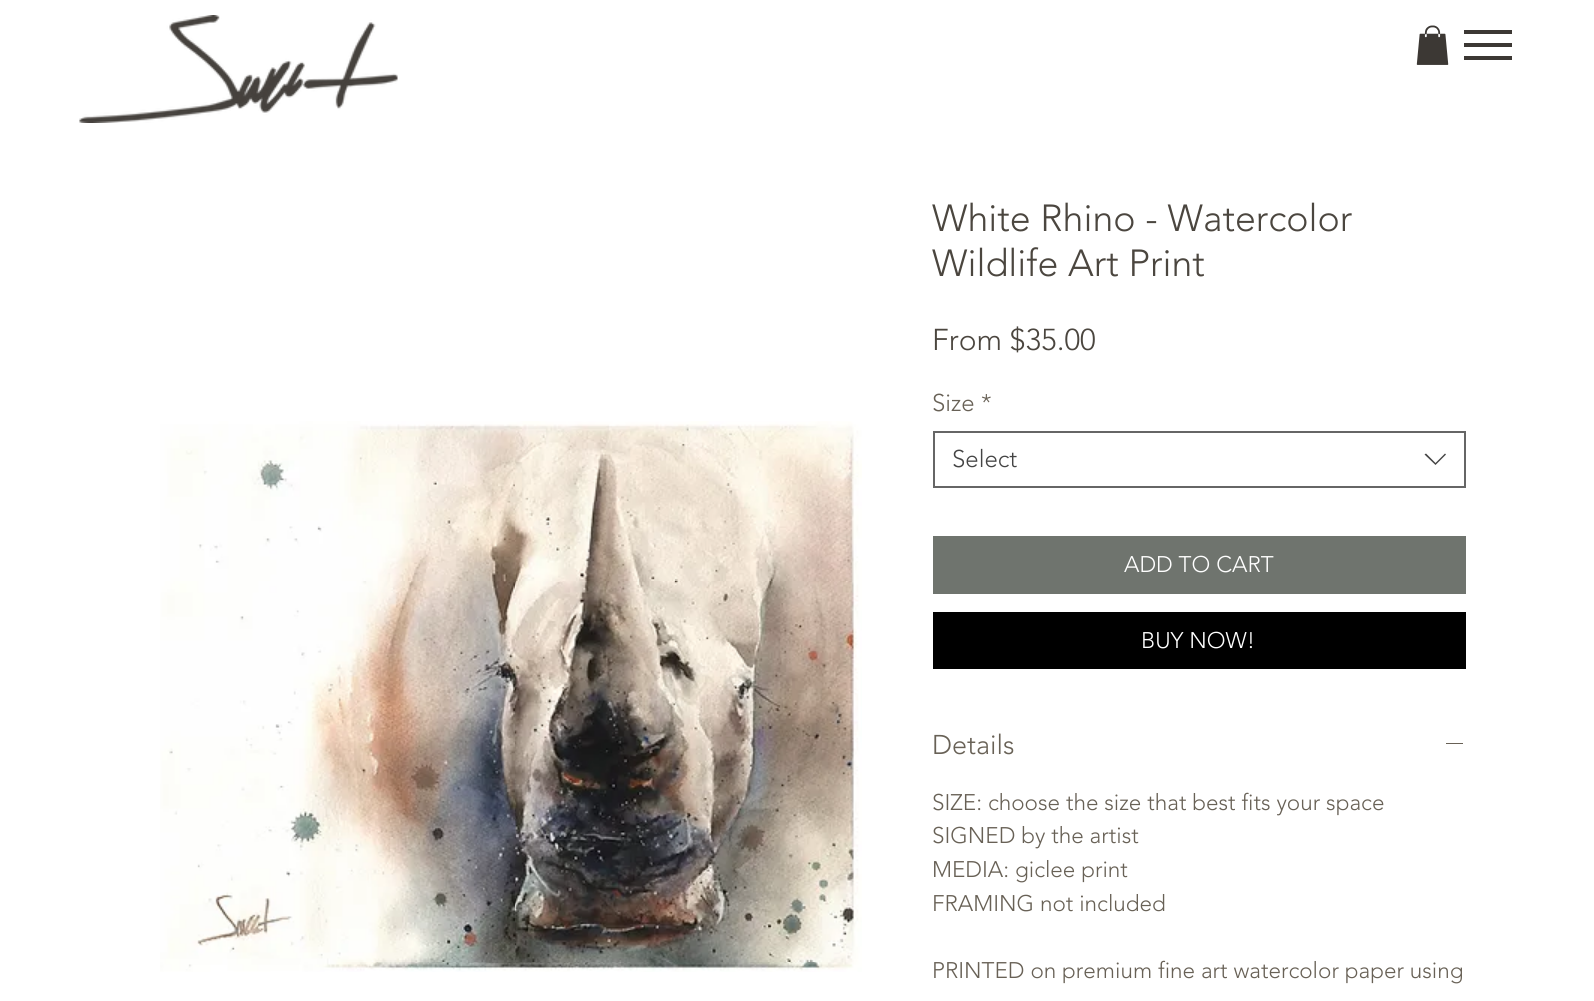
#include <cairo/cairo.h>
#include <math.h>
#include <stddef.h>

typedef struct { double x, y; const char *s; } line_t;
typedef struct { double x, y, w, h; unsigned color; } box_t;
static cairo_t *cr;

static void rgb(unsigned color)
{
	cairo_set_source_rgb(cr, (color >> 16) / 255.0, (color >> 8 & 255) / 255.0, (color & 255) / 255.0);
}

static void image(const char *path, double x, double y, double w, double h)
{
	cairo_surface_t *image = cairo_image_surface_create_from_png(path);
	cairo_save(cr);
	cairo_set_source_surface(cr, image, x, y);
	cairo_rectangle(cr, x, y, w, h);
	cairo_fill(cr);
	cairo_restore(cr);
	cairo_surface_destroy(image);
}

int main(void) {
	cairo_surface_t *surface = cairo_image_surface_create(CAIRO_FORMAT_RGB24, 1594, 1001);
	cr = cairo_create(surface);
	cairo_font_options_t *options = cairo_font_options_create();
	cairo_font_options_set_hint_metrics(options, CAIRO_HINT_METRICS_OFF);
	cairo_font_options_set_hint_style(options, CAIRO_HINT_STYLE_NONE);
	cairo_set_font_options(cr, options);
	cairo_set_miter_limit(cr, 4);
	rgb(0xffffff);
	cairo_paint(cr);
	image("img/1.png", 79, 15, 319, 108);
	image("img/2.png", 1416, 25, 33, 40);
	{
		static const box_t items[] = {
			{1464, 56, 48, 4, 0x3c3834},
			{1464, 30, 48, 4, 0x3c3834},
			{1464, 43, 48, 4, 0x3c3834},
		};
		for (size_t i = 0; i < sizeof items / sizeof *items; i++) {
			rgb(items[i].color);
			cairo_rectangle(cr, items[i].x, items[i].y, items[i].w, items[i].h);
			cairo_fill(cr);
		}
	}
	image("img/3.png", 160, 421, 702, 551);
	cairo_rectangle(cr, 934, 432, 531, 55);
	rgb(0x666666);
	cairo_stroke(cr);
	rgb(0x444444);
	cairo_set_fill_rule(cr, CAIRO_FILL_RULE_EVEN_ODD);
	cairo_new_path(cr);
	cairo_move_to(cr, 1445, 453.5);
	cairo_line_to(cr, 1446, 454.5);
	cairo_line_to(cr, 1435.5, 465);
	cairo_line_to(cr, 1424.5, 454.5);
	cairo_line_to(cr, 1426, 453.5);
	cairo_line_to(cr, 1435.5, 463);
	cairo_close_path(cr);
	cairo_fill(cr);
	{
		static const box_t items[] = {
			{933, 536, 533, 58, 0x6f746e},
			{933, 612, 533, 57, 0x000000},
			{1446, 743, 17, 1, 0x686156},
		};
		for (size_t i = 0; i < sizeof items / sizeof *items; i++) {
			rgb(items[i].color);
			cairo_rectangle(cr, items[i].x, items[i].y, items[i].w, items[i].h);
			cairo_fill(cr);
		}
	}
	cairo_select_font_face(cr, "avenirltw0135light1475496 Light", CAIRO_FONT_SLANT_NORMAL, CAIRO_FONT_WEIGHT_NORMAL);
	cairo_set_font_size(cr, 37.5);
	rgb(0x4b463f);
	cairo_move_to(cr, 932, 231);
	cairo_show_text(cr, "White Rhino - Watercolor");
	cairo_move_to(cr, 932, 276);
	cairo_show_text(cr, "Wildlife Art Print");
	cairo_set_font_size(cr, 30);
	cairo_move_to(cr, 932, 350);
	cairo_show_text(cr, "From $35.00");
	cairo_set_font_size(cr, 24);
	rgb(0x686156);
	cairo_move_to(cr, 932, 411);
	cairo_show_text(cr, "Size *");
	rgb(0x444444);
	cairo_move_to(cr, 952, 467);
	cairo_show_text(cr, "Select");
	cairo_set_font_size(cr, 22.5);
	rgb(0xffffff);
	cairo_move_to(cr, 1124, 572);
	cairo_show_text(cr, "ADD TO CART");
	cairo_move_to(cr, 1141, 648);
	cairo_show_text(cr, "BUY NOW!");
	cairo_set_font_size(cr, 27);
	rgb(0x686156);
	cairo_move_to(cr, 932, 754);
	cairo_show_text(cr, "Details");
	cairo_set_font_size(cr, 22.5);
	{
		static const line_t items[] = {
			{932, 810, "SIZE: choose the size that best fits your space"},
			{932, 843, "SIGNED by the artist"},
			{932, 877, "MEDIA: giclee print"},
			{932, 911, "FRAMING not included"},
			{932, 978, "PRINTED on premium fine art watercolor paper using"},
		};
		for (size_t i = 0; i < sizeof items / sizeof *items; i++) {
			cairo_move_to(cr, items[i].x, items[i].y);
			cairo_show_text(cr, items[i].s);
		}
	}
	cairo_surface_write_to_png(surface, "page.png");
	cairo_font_options_destroy(options);
	cairo_destroy(cr);
	cairo_surface_destroy(surface);
	return 0;
}
